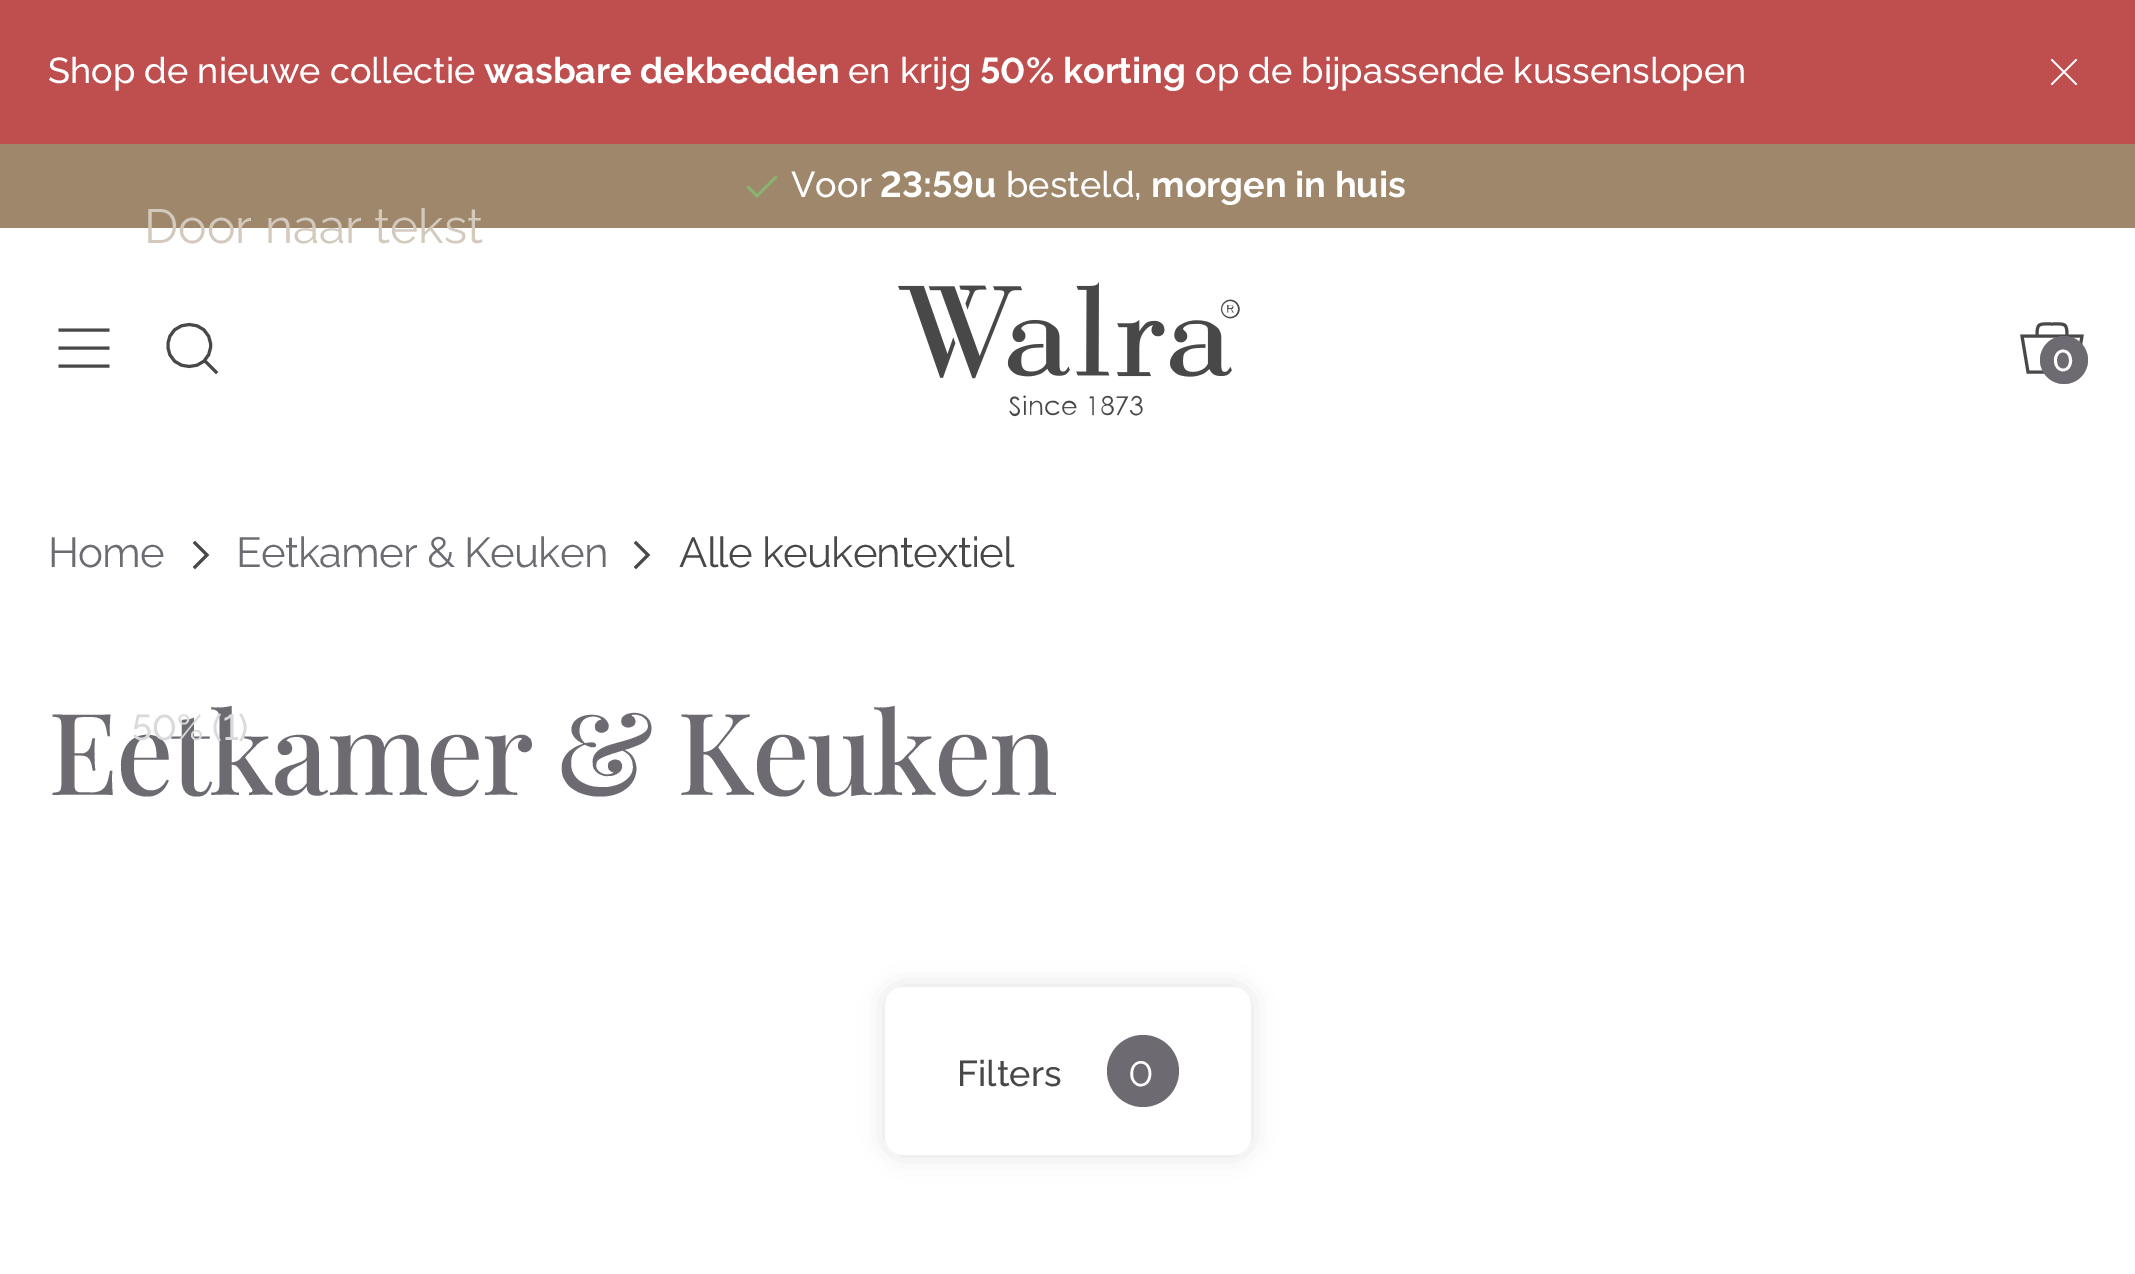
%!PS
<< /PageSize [2135 1274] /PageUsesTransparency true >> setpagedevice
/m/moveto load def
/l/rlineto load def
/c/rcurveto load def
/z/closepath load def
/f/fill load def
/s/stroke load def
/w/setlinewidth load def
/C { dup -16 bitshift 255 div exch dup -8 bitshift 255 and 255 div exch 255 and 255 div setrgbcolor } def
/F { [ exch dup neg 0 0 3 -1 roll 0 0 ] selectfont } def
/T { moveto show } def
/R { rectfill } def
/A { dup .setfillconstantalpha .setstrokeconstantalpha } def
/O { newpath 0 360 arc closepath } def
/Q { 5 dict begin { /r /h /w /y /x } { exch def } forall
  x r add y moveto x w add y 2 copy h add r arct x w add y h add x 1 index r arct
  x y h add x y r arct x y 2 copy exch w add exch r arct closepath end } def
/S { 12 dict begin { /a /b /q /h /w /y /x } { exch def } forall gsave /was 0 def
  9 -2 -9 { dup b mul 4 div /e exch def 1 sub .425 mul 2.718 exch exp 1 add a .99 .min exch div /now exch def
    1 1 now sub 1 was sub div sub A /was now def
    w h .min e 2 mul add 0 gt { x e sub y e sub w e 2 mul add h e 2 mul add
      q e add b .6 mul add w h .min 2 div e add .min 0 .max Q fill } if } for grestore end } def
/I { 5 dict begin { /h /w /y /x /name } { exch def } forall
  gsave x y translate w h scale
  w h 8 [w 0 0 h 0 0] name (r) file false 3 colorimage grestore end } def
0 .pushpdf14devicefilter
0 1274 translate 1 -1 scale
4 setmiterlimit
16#FFFFFF C
0 0 2135 1274 R
16#BF4E4E C
0 0 2135 144 R
/Raleway-Medium 36 F
16#FFFFFF C
(Shop de nieuwe collectie) 48 83 T
/Raleway-Bold 36 F
(wasbare dekbedden) 484 83 T
/Raleway-Medium 36 F
(en krijg) 848 83 T
/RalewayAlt-Bold 36 F
(50% korting) 980 83 T
/Raleway-Medium 36 F
(op de bijpassende kussenslopen) 1195 83 T
(1.rgb) 2050 58 28 28 I
16#9E876B C
0 144 2135 84 R
/Raleway-Regular 48 F
16#D3C9BD C
(Door naar tekst) 144 243 T
16#8AB56F C
2.5 w
2 setlinecap
748.5 187.5 m 8.5 8.5 l 18.5 -18.5 l s
/Raleway-Medium 36 F
16#FFFFFF C
(Voor) 791 197 T
/RalewayAlt-Bold 36 F
(23:59u) 880 197 T
/Raleway-Medium 36 F
(besteld,) 1006 197 T
/Raleway-Bold 36 F
(morgen in huis) 1151 197 T
16#484848 C
3 w
60 330 m 48 0 l 60 348 m 48 0 l 60 366 m 48 0 l s
205.5 361.5 m 10.5 10.5 l 168 345.5 m 0 28 42.5 28 42.5 0 c 0 -28 -42.5 -28 -42.5 0 c z s
(2.rgb) 898 282 342 135 I
0 setlinecap
2074.5 372 m -46.5 0 l -6 -36 l 60 0 l -6 36 l z 2037 336 m 0 -13.5 2 -12 15 -12 c 13 0 15 -1.5 15 12 c s
16#6E6A72 C
2064 360 24 O f
/Raleway-Medium 36 F
16#FFFFFF C
(0) 2052 371 T
/Raleway-Regular 42 F
16#6E6A72 C
48 567 m -.8 0 (Home) ashow
16#484848 C
2 setlinecap
195 567 m 12 -12 l -12 -12 l s
16#6E6A72 C
236 567 m -.8 0 (Eetkamer & Keuken) ashow
16#484848 C
636 567 m 12 -12 l -12 -12 l s
679 567 m -.8 0 (Alle keukentextiel) ashow
/PlayfairDisplay-Medium 114 F
16#6E6A72 C
48 795 m -2.25 0 (Eetkamer & Keuken) ashow
/RalewayAlt-Medium 36 F
16#DAD9DB C
(50% \(1\)) 132 740 T
16#000000 C
885 987 366 168 18 12 .12 S
16#FFFFFF C
885 987 366 168 18 Q f
/Raleway-Medium 36 F
16#484848 C
(Filters) 957 1086 T
16#6E6A72 C
1143 1071 36 O f
/Raleway-Regular 42 F
16#FFFFFF C
(0) 1128 1086 T
.poppdf14devicefilter showpage
